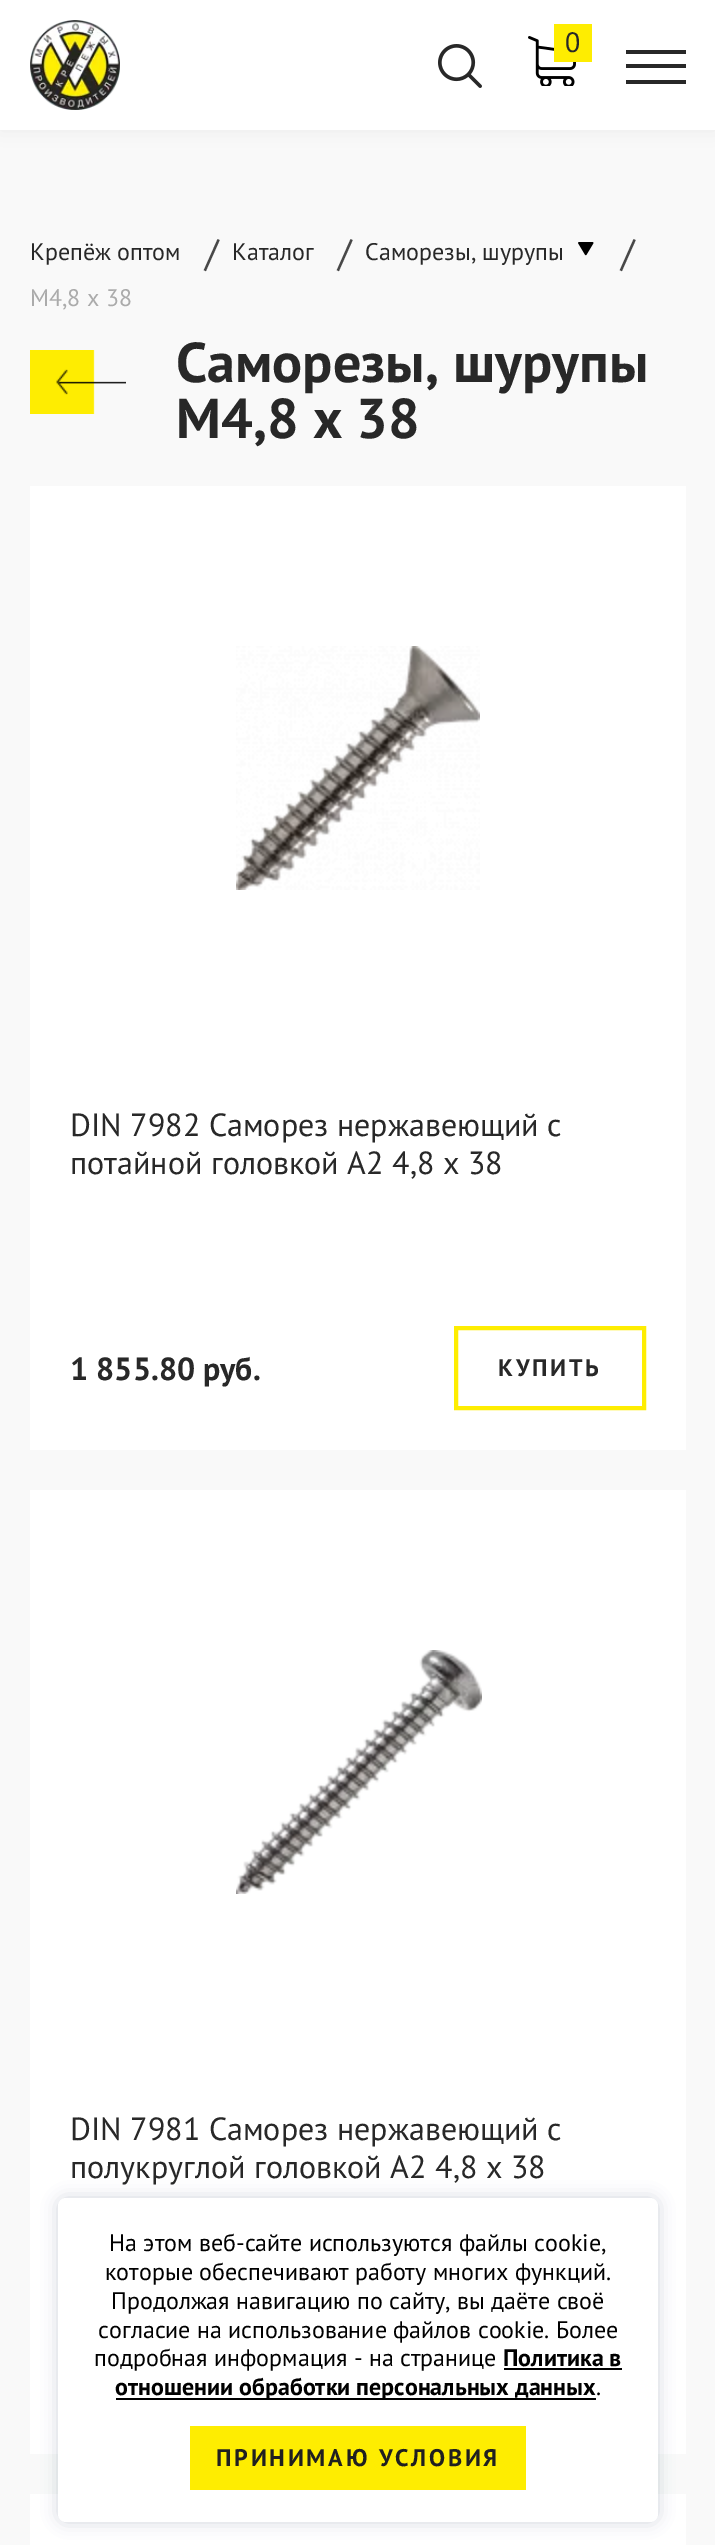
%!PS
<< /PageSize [715 2545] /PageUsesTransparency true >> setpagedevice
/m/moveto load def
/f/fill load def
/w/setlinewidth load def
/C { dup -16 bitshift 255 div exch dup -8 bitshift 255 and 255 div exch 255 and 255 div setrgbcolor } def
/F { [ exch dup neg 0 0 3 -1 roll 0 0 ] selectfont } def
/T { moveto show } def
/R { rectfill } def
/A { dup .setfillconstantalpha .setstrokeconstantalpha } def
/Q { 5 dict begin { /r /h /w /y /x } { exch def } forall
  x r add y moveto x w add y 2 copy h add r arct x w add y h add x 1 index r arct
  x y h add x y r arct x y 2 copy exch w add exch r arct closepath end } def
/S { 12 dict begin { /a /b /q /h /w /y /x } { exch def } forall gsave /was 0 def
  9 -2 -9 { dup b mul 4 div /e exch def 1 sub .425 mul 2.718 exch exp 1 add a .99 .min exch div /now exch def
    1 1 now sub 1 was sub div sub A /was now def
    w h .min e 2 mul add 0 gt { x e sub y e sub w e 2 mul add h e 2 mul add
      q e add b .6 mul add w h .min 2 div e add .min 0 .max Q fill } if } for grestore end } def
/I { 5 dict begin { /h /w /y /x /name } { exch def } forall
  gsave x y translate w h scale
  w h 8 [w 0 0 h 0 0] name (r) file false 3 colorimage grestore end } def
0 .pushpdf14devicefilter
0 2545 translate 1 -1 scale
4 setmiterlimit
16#F9F9F9 C
0 0 715 2545 R
16#030505 C
0 0 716 130 0 10 .05 S
16#FFFFFF C
0 0 715 130 R
(1.rgb) 30 20 90 90 I
(2.rgb) 438 44 44 44 I
(3.rgb) 528 36 48 50 I
16#FEED01 C
554 24 38 38 R
/PTSans-Regular 28 F
16#282828 C
(0) 565 52 T
626 64 60 4 R
626 50 60 4 R
626 80 60 4 R
/PTSans-Regular 24 F
(Крепёж оптом) 30 260 T
/PTSans-Regular 38 F
16#484848 C
(/) 205 266 T
/PTSans-Regular 24 F
16#282828 C
(Каталог) 232 260 T
/PTSans-Regular 38 F
16#484848 C
(/) 338 266 T
/PTSans-Regular 24 F
16#282828 C
(Саморезы, шурупы) 365 260 T
(4.rgb) 578 242 16 14 I
/PTSans-Regular 38 F
16#484848 C
(/) 621 266 T
/PTSans-Regular 24 F
16#ABABAB C
(М4,8 х 38) 30 306 T
(5.rgb) 30 350 96 64 I
/PTSans-Bold 56 F
16#282828 C
(Саморезы, шурупы) 176 382 T
(М4,8 х 38) 176 438 T
16#FFFFFF C
30 486 656 964 R
(6.rgb) 236 646 244 244 I
/PTSans-Regular 32 F
16#282828 C
(DIN 7982 Саморез нержавеющий с) 70 1136 T
(потайной головкой А2 4,8 x 38) 70 1174 T
/PTSans-Bold 32 F
(1 855.80 руб.) 70 1380 T
16#FEED01 C
4 w
456 1328 188 80 rectstroke
/PTSans-Bold 24 F
16#282828 C
498 1376 m 2.75 0 (КУПИТЬ) ashow
16#FFFFFF C
30 1490 656 964 R
(7.rgb) 236 1650 246 244 I
/PTSans-Regular 32 F
16#282828 C
(DIN 7981 Саморез нержавеющий с) 70 2140 T
(полукруглой головкой А2 4,8 x 38) 70 2178 T
16#FFFFFF C
30 2494 656 51 R
16#223C50 C
58 2198 600 324 8 8 .2 S
16#FFFFFF C
58 2198 600 324 8 Q f
/PTSans-Regular 24 F
16#000000 C
(На этом веб-сайте используются файлы cookie,) 109 2251 T
(которые обеспечивают работу многих функций.) 105 2280 T
(Продолжая навигацию по сайту, вы даёте своё) 111 2309 T
(согласие на использование файлов cookie. Более) 98 2338 T
(подробная информация - на странице) 94 2366 T
/PTSans-Bold 24 F
(Политика в) 503 2366 T
504 2368 118 2 R
116 2398 480 2 R
(отношении обработки персональных данных) 115 2395 T
/PTSans-Regular 24 F
(.) 596 2395 T
16#FEED01 C
190 2426 336 64 R
/PTSans-Bold 24 F
16#202020 C
216 2466 m 2.75 0 (ПРИНИМАЮ УСЛОВИЯ) ashow
.poppdf14devicefilter showpage
